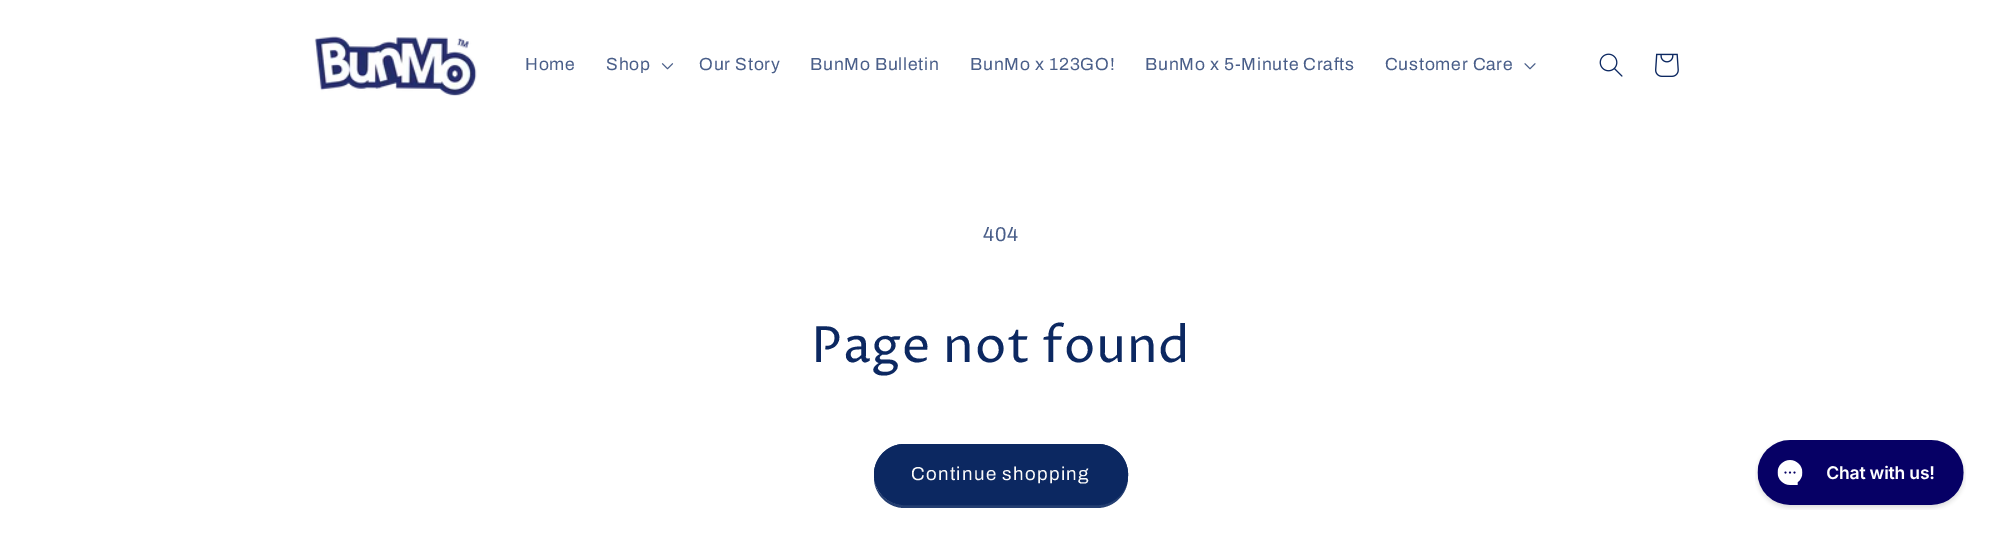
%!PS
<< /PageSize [2001 538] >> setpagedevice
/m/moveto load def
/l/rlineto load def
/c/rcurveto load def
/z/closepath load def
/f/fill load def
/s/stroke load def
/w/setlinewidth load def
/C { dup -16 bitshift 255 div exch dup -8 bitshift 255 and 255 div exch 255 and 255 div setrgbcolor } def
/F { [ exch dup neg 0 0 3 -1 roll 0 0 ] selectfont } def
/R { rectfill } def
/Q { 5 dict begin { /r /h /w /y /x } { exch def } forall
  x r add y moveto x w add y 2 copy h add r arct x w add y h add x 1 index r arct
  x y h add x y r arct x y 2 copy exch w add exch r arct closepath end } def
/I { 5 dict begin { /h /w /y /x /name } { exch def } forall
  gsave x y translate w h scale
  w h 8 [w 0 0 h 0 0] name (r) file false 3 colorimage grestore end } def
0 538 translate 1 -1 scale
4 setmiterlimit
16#FFFFFF C
0 0 2001 538 R
(1.rgb) 314 36 163 60 I
/Archivo-Regular 17.5 F
16#495E89 C
525 70 m .75 0 (Home) ashow
606 70 m .75 0 (Shop) ashow
(2.rgb) 661 63 13 7 I
699 70 m .75 0 (Our Story) ashow
810 70 m .75 0 (BunMo Bulletin) ashow
970 70 m .75 0 (BunMo x 123GO!) ashow
1145 70 m .75 0 (BunMo x 5-Minute Crafts) ashow
1385 70 m .75 0 (Customer Care) ashow
(3.rgb) 1524 63 12 7 I
(4.rgb) 1599 53 24 24 I
(5.rgb) 1655 53 24 24 I
/Archivo-Regular 20 F
983 241 m .75 0 (404) ashow
/ProzaLibre-Regular 50 F
16#0C2861 C
811 362 m .75 0 (Page not found) ashow
16#243E71 C
874 479 m 1 16 14 29 31 29 c 192 0 l 17 0 31 -14 31 -31 c -1 -7 l 1 4 l 0 17 -14 31 -31 31 c -193 0 l -15 0 -28 -11 -30 -26 c z f
16#0C2861 C
874 444 254 61 30.5 Q f
3 w
875.5 445.5 251 58 29 Q s
/Archivo-Regular 18.75 F
16#FAFAFA C
911 480 m 1.25 0 (Continue shopping) ashow
(6.rgb) 1755 440 211 70 I
showpage
